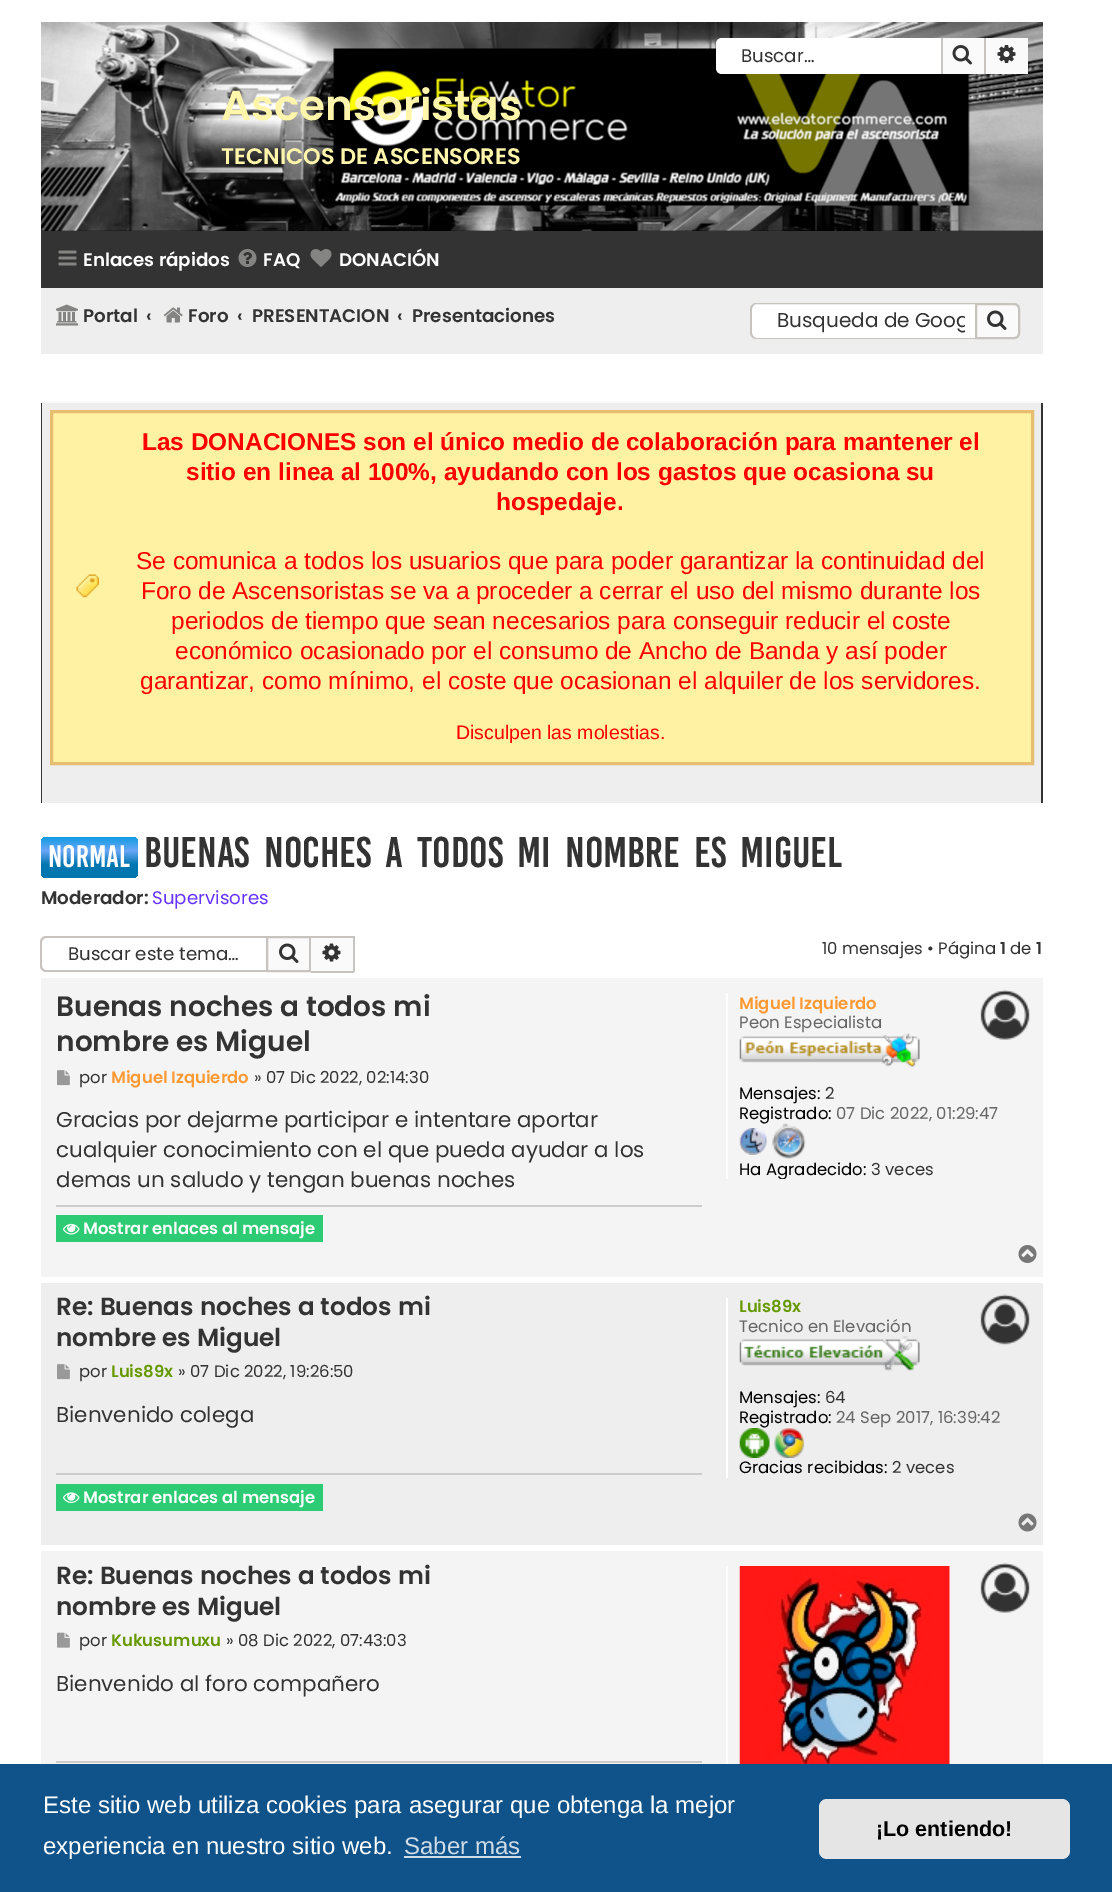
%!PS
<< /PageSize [1112 1892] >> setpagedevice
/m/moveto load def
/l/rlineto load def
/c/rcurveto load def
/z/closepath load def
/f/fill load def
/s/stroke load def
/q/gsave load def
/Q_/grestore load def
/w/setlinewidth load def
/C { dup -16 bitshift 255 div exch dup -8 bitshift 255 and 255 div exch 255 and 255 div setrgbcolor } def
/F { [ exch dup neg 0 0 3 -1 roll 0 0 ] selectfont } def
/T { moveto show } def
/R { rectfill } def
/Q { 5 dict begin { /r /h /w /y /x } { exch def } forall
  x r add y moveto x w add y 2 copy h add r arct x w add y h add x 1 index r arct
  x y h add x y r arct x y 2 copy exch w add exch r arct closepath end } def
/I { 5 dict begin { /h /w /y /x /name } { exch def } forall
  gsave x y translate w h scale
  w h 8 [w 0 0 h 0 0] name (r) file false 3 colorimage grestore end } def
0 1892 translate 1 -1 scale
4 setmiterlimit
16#FFFFFF C
0 0 1112 1892 R
(1.rgb) 41 22 1002 209 I
722 38 m 219 0 l 0 36 l -219 0 l -3.5 0 -6 -2.5 -6 -6 c 0 -24 l 0 -3.5 2.5 -6 6 -6 c z f
/Poppins-Regular 18.25 F
16#333333 C
(Buscar…) 741 62 T
16#FAFAFA C
943 38 41 36 R
16#C7C3BF C
984 38 2 36 R
941 38 2 36 R
(2.rgb) 952 45 20 20 I
16#FAFAFA C
986 38 42 36 R
(3.rgb) 997 45 19 18 I
/Poppins-SemiBold 42 F
16#FFF6AB C
(Ascensoristas) 221 120 T
/Poppins-SemiBold 22.5 F
(TECNICOS DE ASCENSORES) 221 164 T
16#333333 C
41 231 1002 57 R
(4.rgb) 58 250 19 16 I
/Poppins-SemiBold 18.25 F
16#FFFFFF C
(Enlaces rápidos) 83 266 T
(5.rgb) 238 249 19 18 I
(FAQ) 263 266 T
(6.rgb) 310 249 22 18 I
(DONACIÓN) 339 266 T
16#EEEEEE C
41 288 1002 66 R
(7.rgb) 56 304 22 22 I
16#333333 C
(Portal) 83 322 T
(‹) 146 322 T
(8.rgb) 163 307 20 16 I
(Foro) 188 322 T
(‹) 237 322 T
(PRESENTACION) 252 322 T
(‹) 397 322 T
(Presentaciones) 412 322 T
16#FFFFFF C
757 305 m 218 0 l 0 33 l -218 0 l -3 0 -5 -2 -5 -5 c 0 -23 l 0 -3 2 -5 5 -5 c z f
16#C7C3BF C
756 303 m 219 0 l 0 36 l -219 0 l -3 0 -6 -3 -6 -6 c 0 -24 l 0 -3 3 -6 6 -6 c z 756 304 m 219 0 l 0 34 l -219 0 l -2 0 -4 -3 -4 -5 c 0 -24 l 0 -2 2 -5 4 -5 c z eofill
q
777 306 188 30 rectclip
/Poppins-Regular 20 F
16#333333 C
(Busqueda de Goog) 777 327 T
Q_
16#FAFAFA C
976 304 m 38 0 l 3 0 5 2 5 5 c 0 24 l 0 3 -2 5 -5 5 c -38 0 l z q f Q_
16#C7C3BF C
2 w
s
(9.rgb) 987 310 20 20 I
16#333333 C
41 403 1002 400 R
16#EEEEEE C
42 403 999 400 R
16#FAFAFA C
41 401 1002 2 R
16#FFF3A3 C
53 413 978 349 R
(10.rgb) 76 574 23 24 I
16#E7BD72 C
3 w
51.5 411.5 981 352 rectstroke
/LiberationSans-Bold 24.4 F
16#FF0000 C
(Las DONACIONES son el único medio de colaboración para mantener el) 142 450 T
(sitio en linea al 100%, ayudando con los gastos que ocasiona su) 186 480 T
(hospedaje.) 496 510 T
/LiberationSans-Regular 24.4 F
(Se comunica a todos los usuarios que para poder garantizar la continuidad del) 136 569 T
(Foro de Ascensoristas se va a proceder a cerrar el uso del mismo durante los) 141 599 T
(periodos de tiempo que sean necesarios para conseguir reducir el coste) 171 629 T
(económico ocasionado por el consumo de Ancho de Banda y así poder) 175 659 T
(garantizar, como mínimo, el coste que ocasionan el alquiler de los servidores.) 140 689 T
/LiberationSans-Regular 19.5 F
(Disculpen las molestias.) 456 739 T
q 41 837 97 41 6 Q clip newpath
<< /ShadingType 2 /ColorSpace /DeviceRGB /Coords [89 837 89 878] /Extend [true true] /Function << /FunctionType 3 /Domain [0 1] /Functions [<< /FunctionType 2 /Domain [0 1] /C0 [.059 .608 .882] /C1 [.416 .655 .969] /N 1 >> << /FunctionType 2 /Domain [0 1] /C0 [.416 .655 .969] /C1 [0 .463 .694] /N 1 >> << /FunctionType 2 /Domain [0 1] /C0 [0 .463 .694] /C1 [0 .463 .694] /N 1 >>] /Bounds [.33 .67] /Encode [0 1 0 1 0 1] >> >> shfill Q_
/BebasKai-Regular 24 F
16#FFFFFF C
(Normal) 48 867 T
/BebasKai-Regular 33 F
16#333333 C
144 867 m 6 0 32 (Buenas noches a todos mi nombre es Miguel) widthshow
/Poppins-SemiBold 18.25 F
(Moderador:) 41 904 T
/Poppins-Regular 18.25 F
16#6633FF C
(Supervisores) 152 904 T
16#C7C3BF C
46 936 m 220 0 l 0 36 l -220 0 l -3 0 -6 -3 -6 -6 c 0 -24 l 0 -3 3 -6 6 -6 c z 46 938 m 220 0 l 0 32 l -220 0 l -2 0 -4 -2 -4 -4 c 0 -24 l 0 -2 2 -4 4 -4 c z eofill
16#333333 C
(Buscar este tema…) 68 960 T
16#FAFAFA C
267 937 m 43 0 l 0 34 l -43 0 l z q f Q_
16#C7C3BF C
2 w
s
(9.rgb) 279 943 20 20 I
16#FAFAFA C
311 938 42 33 R
16#C7C3BF C
311 936 43 2 R
353 936 2 36 R
311 971 43 2 R
(11.rgb) 322 943 19 19 I
/Poppins-Regular 16.5 F
16#333333 C
(10 mensajes • Página) 822 954 T
/Poppins-SemiBold 16.5 F
(1) 1000 954 T
/Poppins-Regular 16.5 F
(de) 1010 954 T
/Poppins-SemiBold 16.5 F
(1) 1036 954 T
16#F4F4F4 C
41 978 1002 299 R
(12.rgb) 980 989 50 51 I
/Poppins-SemiBold 28 F
16#333333 C
(Buenas noches a todos mi) 56 1016 T
(nombre es Miguel) 56 1051 T
(13.rgb) 57 1070 13 16 I
/Poppins-Regular 16.5 F
(por) 79 1083 T
/Poppins-SemiBold 16.5 F
16#FF9933 C
(Miguel Izquierdo) 111 1083 T
/Poppins-Regular 16.5 F
16#333333 C
(» 07 Dic 2022, 02:14:30) 254 1083 T
/Poppins-Regular 21.45 F
(Gracias por dejarme participar e intentare aportar) 56 1127 T
(cualquier conocimiento con el que pueda ayudar a los) 56 1157 T
(demas un saludo y tengan buenas noches) 56 1187 T
16#CCCCCC C
56 1205 646 2 R
16#2DCB73 C
56 1215 267 27 R
(14.rgb) 63 1223 17 12 I
/Poppins-SemiBold 16.5 F
16#FFFFFF C
(Mostrar enlaces al mensaje) 83 1234 T
726 993 2 186 R
16#FF9933 C
(Miguel Izquierdo) 739 1009 T
/Poppins-Regular 16.5 F
16#666666 C
(Peon Especialista) 739 1028 T
(15.rgb) 739 1033 181 34 I
16#000000 C
(Mensajes:) 739 1099 T
16#333333 C
(2) 825 1099 T
16#000000 C
(Registrado:) 739 1119 T
16#666666 C
(07 Dic 2022, 01:29:47) 836 1119 T
(16.rgb) 739 1128 28 27 I
(17.rgb) 772 1123 34 36 I
q
740 1160 288 19 rectclip
16#000000 C
(Ha Agradecido:) 739 1175 T
Q_
16#333333 C
(3 veces) 871 1175 T
(18.rgb) 1018 1245 19 18 I
16#EEEEEE C
41 1283 1002 262 R
(19.rgb) 980 1294 50 51 I
/Poppins-SemiBold 24.75 F
16#333333 C
(Re: Buenas noches a todos mi) 56 1315 T
(nombre es Miguel) 56 1346 T
(20.rgb) 57 1364 13 16 I
/Poppins-Regular 16.5 F
(por) 79 1377 T
/Poppins-SemiBold 16.5 F
16#669900 C
(Luis89x) 111 1377 T
/Poppins-Regular 16.5 F
16#333333 C
(» 07 Dic 2022, 19:26:50) 178 1377 T
/Poppins-Regular 21.45 F
(Bienvenido colega) 56 1422 T
16#CCCCCC C
56 1473 646 2 R
16#2DCB73 C
56 1484 267 27 R
(21.rgb) 63 1492 17 11 I
/Poppins-SemiBold 16.5 F
16#FFFFFF C
(Mostrar enlaces al mensaje) 83 1503 T
726 1298 2 180 R
16#669900 C
(Luis89x) 739 1312 T
/Poppins-Regular 16.5 F
16#666666 C
(Tecnico en Elevación) 739 1332 T
(22.rgb) 739 1336 181 36 I
16#000000 C
(Mensajes:) 739 1403 T
16#333333 C
(64) 825 1403 T
16#000000 C
(Registrado:) 739 1423 T
16#666666 C
(24 Sep 2017, 16:39:42) 836 1423 T
(23.rgb) 739 1428 31 30 I
(24.rgb) 774 1428 30 30 I
16#000000 C
(Gracias recibidas:) 739 1473 T
16#333333 C
(2 veces) 892 1473 T
(25.rgb) 1018 1513 19 19 I
16#F4F4F4 C
41 1551 1002 213 R
(12.rgb) 980 1562 50 51 I
/Poppins-SemiBold 24.75 F
16#333333 C
(Re: Buenas noches a todos mi) 56 1584 T
(nombre es Miguel) 56 1615 T
(26.rgb) 57 1632 13 16 I
/Poppins-Regular 16.5 F
(por) 79 1646 T
/Poppins-SemiBold 16.5 F
16#669900 C
(Kukusumuxu) 111 1646 T
/Poppins-Regular 16.5 F
16#333333 C
(» 08 Dic 2022, 07:43:03) 226 1646 T
/Poppins-Regular 21.45 F
(Bienvenido al foro compañero) 56 1691 T
16#CCCCCC C
56 1761 646 2 R
16#FFFFFF C
726 1566 2 198 R
(27.rgb) 739 1566 211 198 I
16#0F538A C
0 1764 1112 128 R
/LiberationSans-Regular 24 F
16#FFFFFF C
(Este sitio web utiliza cookies para asegurar que obtenga la mejor) 43 1813 T
(experiencia en nuestro sitio web.) 43 1854 T
16#CFDDE8 C
(Saber más) 404 1854 T
404 1856 117 2 R
16#E5E5E5 C
819 1799 251 60 8 Q f
/LiberationSans-Bold 21.5 F
16#000000 C
(¡Lo entiendo!) 876 1836 T
showpage
